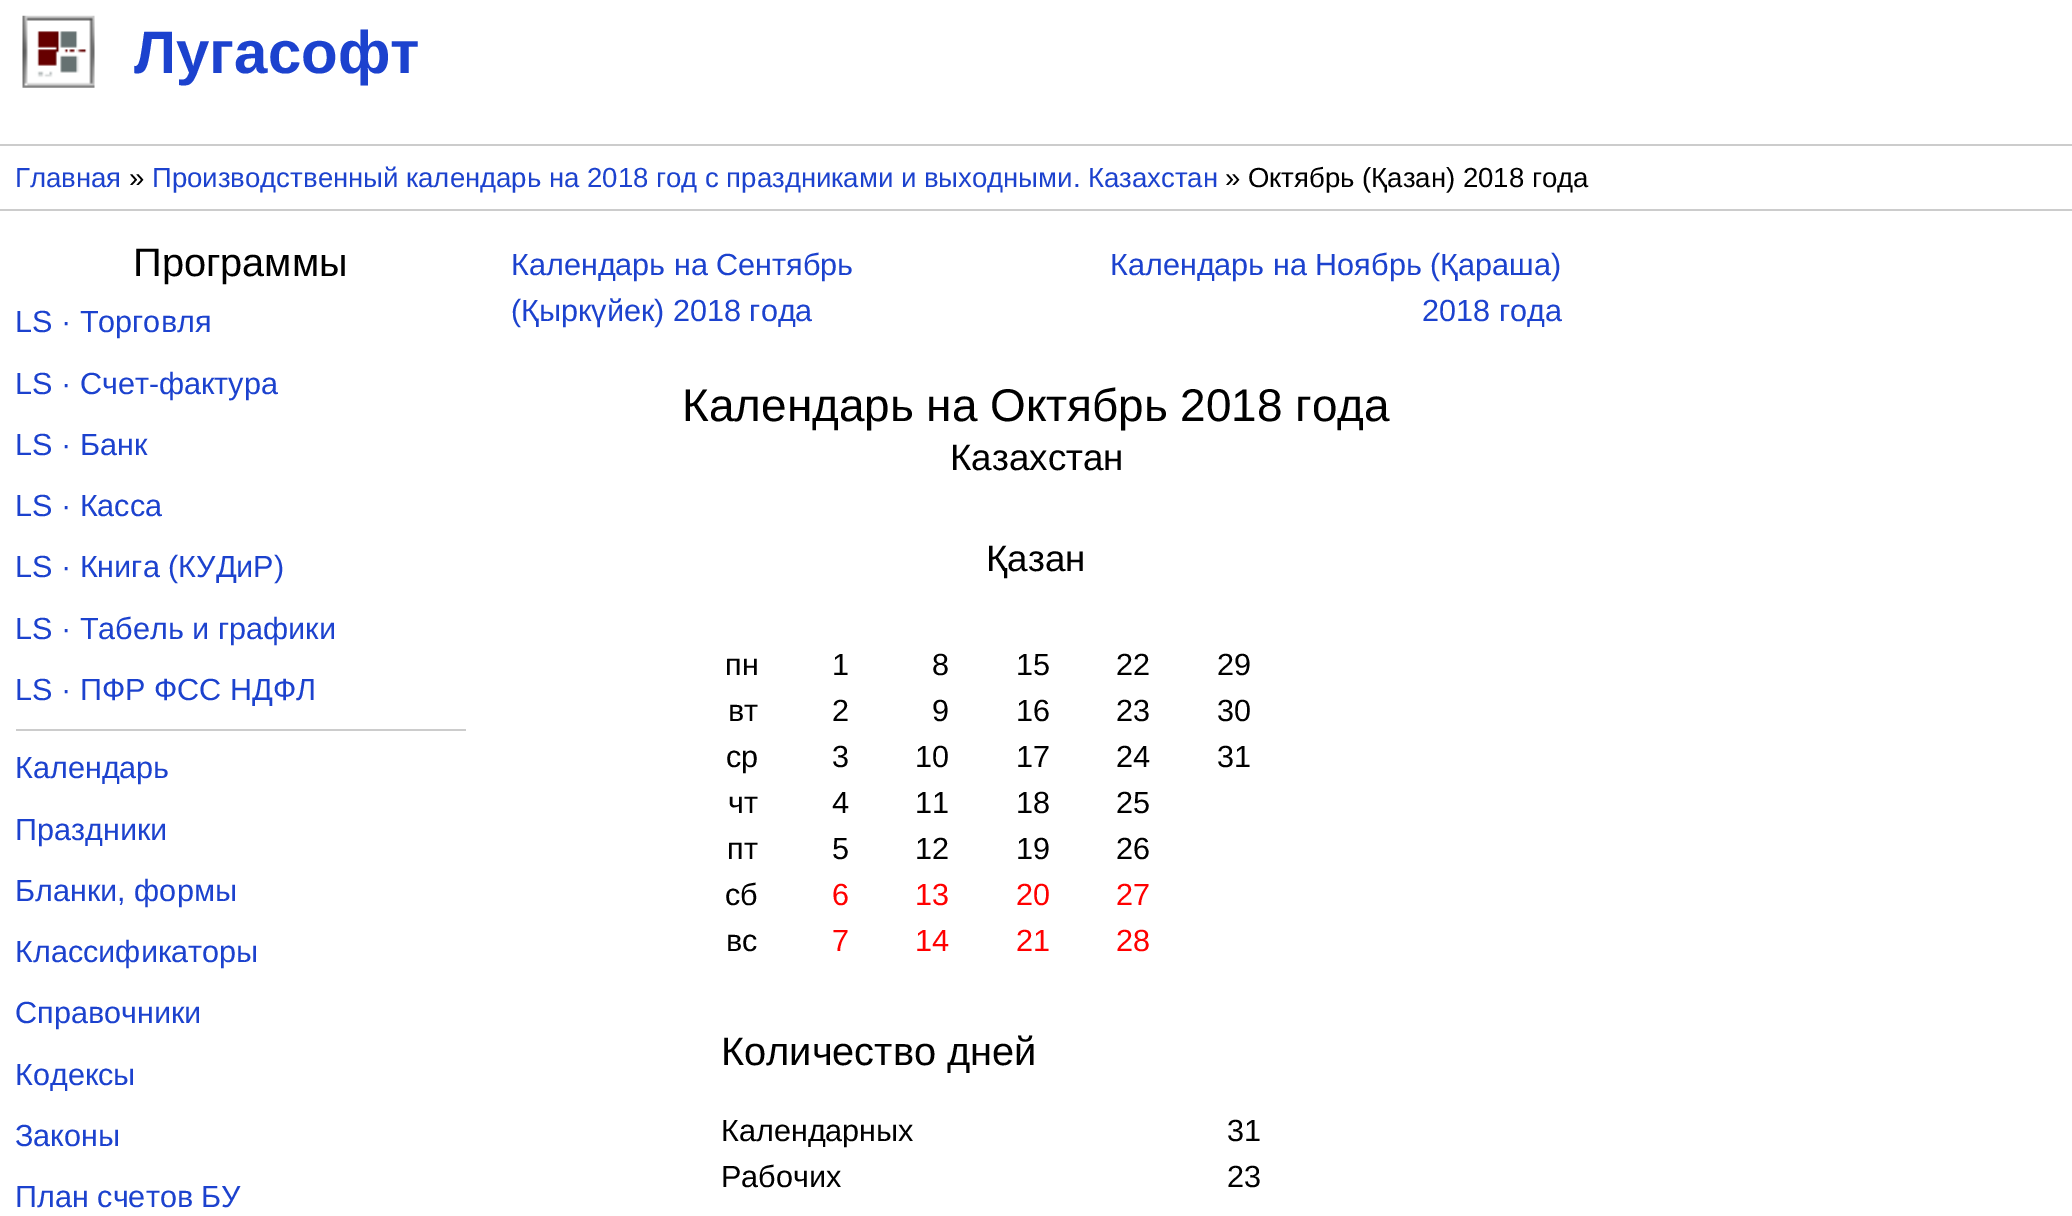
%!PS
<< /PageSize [2072 1216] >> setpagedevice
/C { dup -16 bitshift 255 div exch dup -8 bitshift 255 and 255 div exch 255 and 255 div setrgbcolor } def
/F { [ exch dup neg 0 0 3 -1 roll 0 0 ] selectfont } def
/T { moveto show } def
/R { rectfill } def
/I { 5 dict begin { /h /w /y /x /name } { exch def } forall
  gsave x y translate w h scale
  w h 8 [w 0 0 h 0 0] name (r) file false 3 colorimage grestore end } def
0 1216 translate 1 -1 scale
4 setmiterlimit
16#FFFFFF C
0 0 2072 1216 R
(1.rgb) 22 15 73 73 I
/LiberationSans-Bold 60 F
16#1C42CE C
(Лугасофт) 134 73 T
16#CCCCCC C
0 144 2072 2 R
0 209 2072 2 R
/LiberationSans-Regular 27.55 F
16#1C42CE C
(Главная) 15 187 T
16#000000 C
(») 129 187 T
16#1C42CE C
(Производственный календарь на 2018 год с праздниками и выходными. Казахстан) 152 187 T
16#000000 C
(» Октябрь \(Қазан\) 2018 года) 1225 187 T
/LiberationSans-Regular 39.75 F
(Программы) 133 276 T
16#CCCCCC C
16 729 450 2 R
/LiberationSans-Regular 30.6 F
16#1C42CE C
(LS · Торговля) 15 332 T
(LS · Счет-фактура) 15 394 T
(LS · Банк) 15 455 T
(LS · Касса) 15 516 T
(LS · Книга \(КУДиР\)) 15 577 T
(LS · Табель и графики) 15 639 T
(LS · ПФР ФСС НДФЛ) 15 700 T
(Календарь) 15 778 T
(Праздники) 15 840 T
(Бланки, формы) 15 901 T
(Классификаторы) 15 962 T
(Справочники) 15 1023 T
(Кодексы) 15 1085 T
(Законы) 15 1146 T
(План счетов БУ) 15 1207 T
(Календарь на Сентябрь) 511 275 T
(\(Қыркүйек\) 2018 года) 511 321 T
(Календарь на Ноябрь \(Қараша\)) 1110 275 T
(2018 года) 1422 321 T
/LiberationSans-Regular 45.9 F
16#000000 C
(Календарь на Октябрь 2018 года) 682 421 T
/LiberationSans-Regular 36.75 F
(Казахстан) 950 470 T
(Қазан) 986 571 T
/LiberationSans-Regular 30.6 F
(пн) 725 675 T
(1) 832 675 T
(8) 932 675 T
(15) 1016 675 T
(22) 1116 675 T
(29) 1217 675 T
(вт) 728 721 T
(2) 832 721 T
(9) 932 721 T
(16) 1016 721 T
(23) 1116 721 T
(30) 1217 721 T
(ср) 726 767 T
(3) 832 767 T
(10) 915 767 T
(17) 1016 767 T
(24) 1116 767 T
(31) 1217 767 T
(чт) 728 813 T
(4) 832 813 T
(11) 915 813 T
(18) 1016 813 T
(25) 1116 813 T
(пт) 727 859 T
(5) 832 859 T
(12) 915 859 T
(19) 1016 859 T
(26) 1116 859 T
(сб) 725 905 T
16#FF0000 C
(6) 832 905 T
(13) 915 905 T
(20) 1016 905 T
(27) 1116 905 T
16#000000 C
(вс) 726 951 T
16#FF0000 C
(7) 832 951 T
(14) 915 951 T
(21) 1016 951 T
(28) 1116 951 T
/LiberationSans-Regular 39.75 F
16#000000 C
(Количество дней) 721 1065 T
/LiberationSans-Regular 30.6 F
(Календарных) 721 1141 T
(31) 1227 1141 T
(Рабочих) 721 1187 T
(23) 1227 1187 T
showpage
